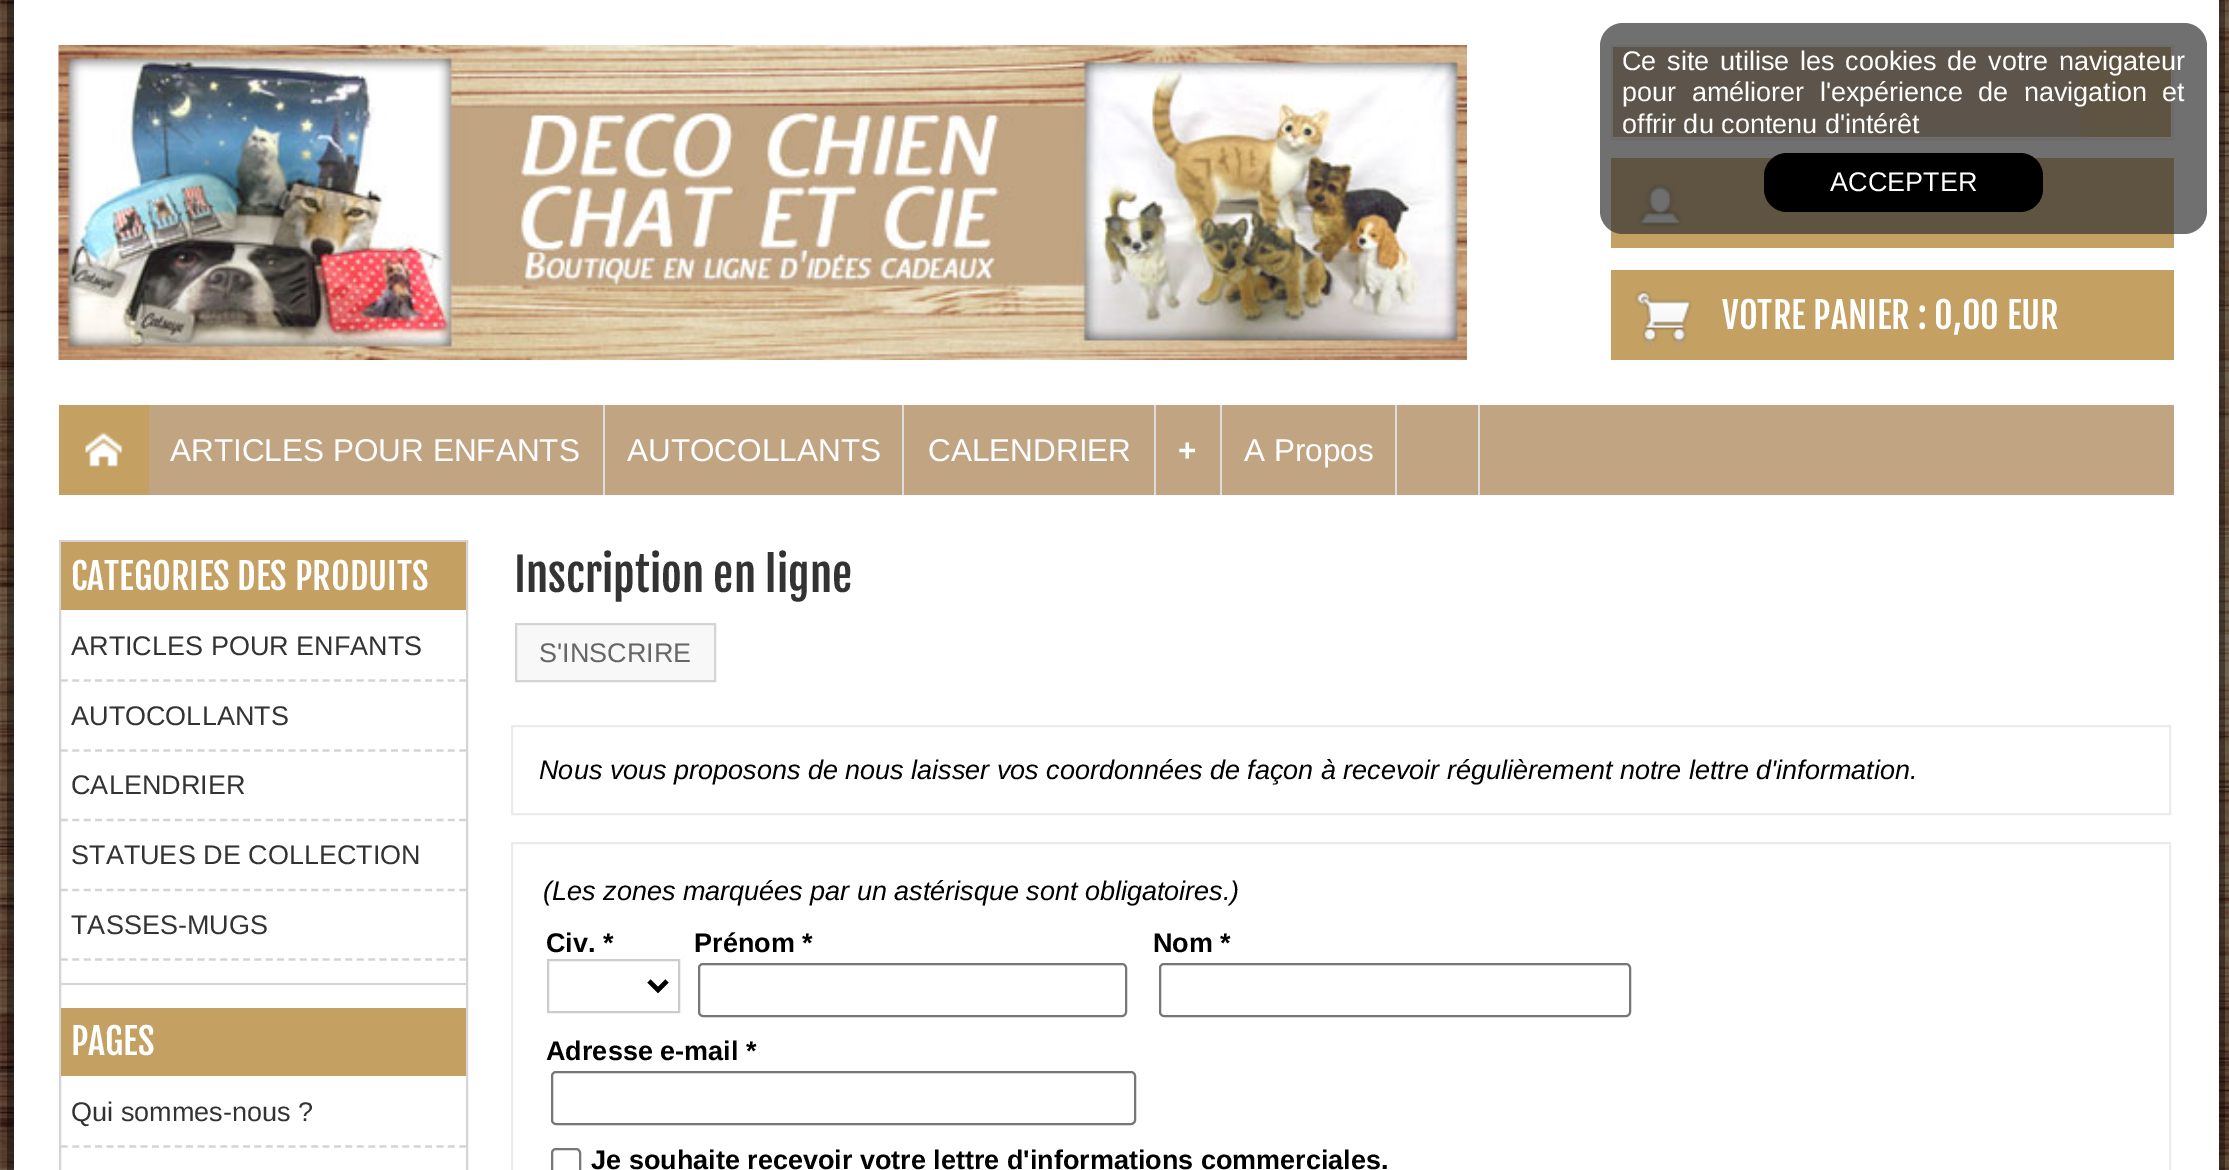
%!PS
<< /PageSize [2229 1170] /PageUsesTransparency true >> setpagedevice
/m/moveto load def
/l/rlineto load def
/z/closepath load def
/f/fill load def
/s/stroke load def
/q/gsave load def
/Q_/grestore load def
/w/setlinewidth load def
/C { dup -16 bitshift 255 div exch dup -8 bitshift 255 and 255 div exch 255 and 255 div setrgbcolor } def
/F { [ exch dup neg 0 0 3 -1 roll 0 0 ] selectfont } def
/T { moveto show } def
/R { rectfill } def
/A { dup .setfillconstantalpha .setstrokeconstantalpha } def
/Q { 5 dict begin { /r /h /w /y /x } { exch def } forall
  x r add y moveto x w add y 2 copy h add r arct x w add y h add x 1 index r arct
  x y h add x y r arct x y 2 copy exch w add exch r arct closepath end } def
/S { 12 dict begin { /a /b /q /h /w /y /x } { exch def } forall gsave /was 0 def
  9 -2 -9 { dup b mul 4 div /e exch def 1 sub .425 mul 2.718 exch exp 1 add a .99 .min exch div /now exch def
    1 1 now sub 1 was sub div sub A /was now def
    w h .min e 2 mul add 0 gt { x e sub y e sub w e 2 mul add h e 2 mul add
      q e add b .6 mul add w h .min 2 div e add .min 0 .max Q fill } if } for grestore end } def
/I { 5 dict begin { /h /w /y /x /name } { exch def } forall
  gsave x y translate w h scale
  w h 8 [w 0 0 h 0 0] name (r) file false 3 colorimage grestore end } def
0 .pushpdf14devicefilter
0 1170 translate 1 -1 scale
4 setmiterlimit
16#FFFFFF C
0 0 2229 1170 R
(1.rgb) 0 0 2229 1170 I
16#000000 C
0 -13 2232 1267 0 28 1 S
16#FFFFFF C
14 0 2205 1170 R
16#EEEEEE C
2 w
1612 46 561 93 rectstroke
16#C1A482 C
1613 47 468 90 R
16#C4A163 C
2081 47 90 90 R
1611 158 563 90 R
(3.rgb) 1637 183 46 44 I
0.7 A
16#333333 C
1600 23 607 211 23 Q f
/LiberationSans-Regular 27 F
1 A
16#FFFFFF C
1622 70 m 3.25 0 32 (Ce site utilise les cookies de votre navigateur) widthshow
1622 101 m 8 0 32 (pour améliorer l'expérience de navigation et) widthshow
(offrir du contenu d'intérêt) 1622 133 T
16#000000 C
1764 153 279 59 23 Q f
16#FFFFFF C
(ACCEPTER) 1830 191 T
(2.rgb) 58 45 1409 315 I
16#C4A163 C
1611 270 563 90 R
(4.rgb) 1635 291 57 56 I
/FjallaOne-Regular 36 F
16#FFFFFF C
(VOTRE PANIER : 0,00 EUR) 1722 329 T
16#C4A163 C
59 405 90 90 R
(5.rgb) 85 431 38 36 I
16#C1A482 C
149 405 2025 90 R
16#DDDDDD C
603 405 2 90 R
/LiberationSans-Regular 31.5 F
16#FFFFFF C
(ARTICLES POUR ENFANTS) 170 461 T
16#DDDDDD C
902 405 2 90 R
16#FFFFFF C
(AUTOCOLLANTS) 627 461 T
16#DDDDDD C
1154 405 2 90 R
16#FFFFFF C
(CALENDRIER) 928 461 T
16#DDDDDD C
1220 405 2 90 R
/LiberationSans-Bold 31.5 F
16#FFFFFF C
(+) 1178 461 T
16#DDDDDD C
1395 405 2 90 R
/LiberationSans-Regular 31.5 F
16#FFFFFF C
(A Propos) 1244 461 T
16#DDDDDD C
1478 405 2 90 R
16#D4D4D4 C
60 541 407 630 rectstroke
16#C4A163 C
61 542 405 68 R
/FjallaOne-Regular 36 F
16#FFFFFF C
(CATEGORIES DES PRODUITS) 71 590 T
16#D4D4D4 C
2.2 w
[6.75 4.63] 0 setdash
61 680.5 m 405 0 l s
/LiberationSans-Regular 27 F
16#333333 C
(ARTICLES POUR ENFANTS) 71 655 T
16#D4D4D4 C
61 750.5 m 405 0 l s
16#333333 C
(AUTOCOLLANTS) 71 725 T
16#D4D4D4 C
61 820 m 405 0 l s
16#333333 C
(CALENDRIER) 71 794 T
16#D4D4D4 C
61 890 m 405 0 l s
16#333333 C
(STATUES DE COLLECTION) 71 864 T
16#D4D4D4 C
61 959.5 m 405 0 l s
16#333333 C
(TASSES-MUGS) 71 934 T
16#D4D4D4 C
61 983 405 2 R
16#C4A163 C
61 1008 405 68 R
/FjallaOne-Regular 36 F
16#FFFFFF C
(PAGES) 71 1055 T
16#D4D4D4 C
61 1146.5 m 405 0 l s
/LiberationSans-Regular 27 F
16#333333 C
(Qui sommes-nous ?) 71 1121 T
/FjallaOne-Regular 45 F
(Inscription en ligne) 514 592 T
16#F8F8F8 C
516 624 m 199 0 l 0 57 l -199 0 l z q f Q_
16#D4D4D4 C
2 w
[] 0 setdash
s
/LiberationSans-Regular 27 F
16#666666 C
(S'INSCRIRE) 539 662 T
16#EBEBEB C
512 726 1658 88 rectstroke
/LiberationSans-Italic 27 F
16#000000 C
(Nous vous proposons de nous laisser vos coordonnées de façon à recevoir régulièrement notre lettre d'information.) 539 779 T
16#EBEBEB C
512 843 1658 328 rectstroke
16#000000 C
(\(Les zones marquées par un astérisque sont obligatoires.\)) 543 900 T
/LiberationSans-Bold 27 F
(Civ. *) 546 952 T
16#CCCCCC C
548 960 131 52 rectstroke
16#000000 C
4.5 w
649 981 m 9 9 l 9 -9 l s
(Prénom *) 694 952 T
16#767676 C
2 w
699 964 427 52 4 Q s
16#000000 C
(Nom *) 1153 952 T
16#767676 C
1160 964 470 52 4 Q s
16#000000 C
(Adresse e-mail *) 546 1060 T
16#767676 C
552 1072 583 52 4 Q s
552 1149 28 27 4 Q s
16#000000 C
(Je souhaite recevoir votre lettre d'informations commerciales.) 591 1169 T
.poppdf14devicefilter showpage
